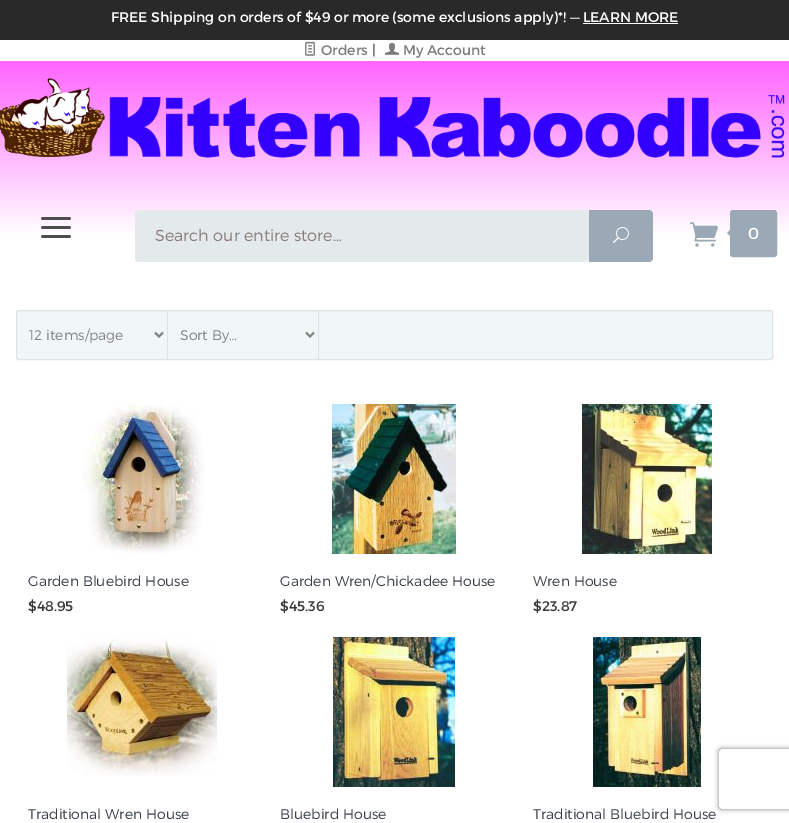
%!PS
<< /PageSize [789 823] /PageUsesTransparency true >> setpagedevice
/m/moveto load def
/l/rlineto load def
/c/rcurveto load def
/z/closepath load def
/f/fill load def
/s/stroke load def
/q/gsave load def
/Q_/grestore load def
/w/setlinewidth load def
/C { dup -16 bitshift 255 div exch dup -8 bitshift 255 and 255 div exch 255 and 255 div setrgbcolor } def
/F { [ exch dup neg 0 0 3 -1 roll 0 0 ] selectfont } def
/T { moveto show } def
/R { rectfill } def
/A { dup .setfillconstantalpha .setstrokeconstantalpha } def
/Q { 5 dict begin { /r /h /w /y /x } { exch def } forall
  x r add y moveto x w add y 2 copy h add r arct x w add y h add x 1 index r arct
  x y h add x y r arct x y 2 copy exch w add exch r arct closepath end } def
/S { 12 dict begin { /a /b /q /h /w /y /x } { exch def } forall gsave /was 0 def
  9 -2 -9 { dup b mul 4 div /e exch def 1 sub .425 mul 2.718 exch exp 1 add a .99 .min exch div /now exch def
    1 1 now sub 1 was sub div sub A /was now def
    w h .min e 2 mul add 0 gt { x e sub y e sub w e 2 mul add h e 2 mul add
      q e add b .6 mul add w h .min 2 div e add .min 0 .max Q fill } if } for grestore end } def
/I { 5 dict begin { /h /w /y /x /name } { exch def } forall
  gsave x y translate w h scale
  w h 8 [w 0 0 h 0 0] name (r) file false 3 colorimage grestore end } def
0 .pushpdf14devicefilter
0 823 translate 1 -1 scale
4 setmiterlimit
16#FFFFFF C
0 0 789 823 R
16#292929 C
0 0 789 40 R
/Montserrat-Regular 14 F
16#FFFFFF C
(FREE Shipping on orders of $49 or more \(some exclusions apply\)*! — LEARN MORE) 111 22 T
583 23 95 1 R
(1.rgb) 305 41 10 15 I
16#7D7D7D C
(Orders) 321 55 T
16#4D4D4D C
(|) 372 55 T
(2.rgb) 385 42 14 13 I
16#7D7D7D C
(My Account) 403 55 T
q 0 61 m 789 0 l 0 173 l -789 0 l z clip newpath
<< /ShadingType 2 /ColorSpace /DeviceRGB /Coords [395 61 395 278] /Extend [true true] /Function << /FunctionType 3 /Domain [0 1] /Functions [<< /FunctionType 2 /Domain [0 1] /C0 [1 .4 1] /C1 [1 .4 1] /N 1 >> << /FunctionType 2 /Domain [0 1] /C0 [1 .4 1] /C1 [1 1 1] /N 1 >> << /FunctionType 2 /Domain [0 1] /C0 [1 1 1] /C1 [1 1 1] /N 1 >>] /Bounds [.01 .81] /Encode [0 1 0 1 0 1] >> >> shfill Q_
(3.rgb) 0 78 785 80 I
(4.rgb) 41 217 30 21 I
16#E4EAEB C
135 210 454 52 4 Q f
/Montserrat-Light 16 F
16#8A7B7B C
(Search our entire store…) 155 241 T
16#9BA8B5 C
589 210 m 60 0 l 2 0 4 2 4 4 c 0 44 l 0 2 -2 4 -4 4 c -60 0 l z f
(5.rgb) 613 227 16 16 I
(6.rgb) 690 222 28 25 I
2 w
731 211 45 45 2 Q s
732 228 m 0 10 l -5 -5 l z f
732 212 43 43 R
/Montserrat-Regular 16 F
16#FFFFFF C
(0) 748 239 T
16#F1F6F7 C
16.5 310.5 756 49 2.5 Q q f Q_
16#DBE3E5 C
1 w
s
167 311 1 48 R
16#838383 C
2 w
155 332.5 m 4 4 l 4 -4 l s
/Montserrat-Light 14 F
(12 items/page) 29 340 T
16#DBE3E5 C
318 311 1 48 R
16#838383 C
306 332.5 m 4 4 l 4 -4 l s
(Sort By…) 180 340 T
(7.rgb) 81 404 124 150 I
16#383F48 C
(Garden Bluebird House) 28 586 T
/Montserrat-Regular 14 F
16#393939 C
($48.95) 28 611 T
(8.rgb) 332 404 124 150 I
/Montserrat-Light 14 F
16#383F48 C
(Garden Wren/Chickadee House) 280 586 T
/Montserrat-Regular 14 F
16#393939 C
($45.36) 280 611 T
(9.rgb) 582 404 130 150 I
/Montserrat-Light 14 F
16#383F48 C
(Wren House) 533 586 T
/Montserrat-Regular 14 F
16#393939 C
($23.87) 533 611 T
(10.rgb) 67 637 150 139 I
/Montserrat-Light 14 F
16#383F48 C
(Traditional Wren House) 28 819 T
(11.rgb) 333 637 122 150 I
(Bluebird House) 280 819 T
(12.rgb) 593 637 108 150 I
(Traditional Bluebird House) 533 819 T
q
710 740 m 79 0 l 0 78 l -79 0 l z 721 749 m 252 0 l 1 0 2 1 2 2 c 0 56 l 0 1 -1 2 -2 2 c -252 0 l -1 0 -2 -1 -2 -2 c 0 -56 l 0 -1 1 -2 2 -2 c z eoclip newpath
16#808080 C
719 749 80 60 2 2.5 1 S
Q_
.poppdf14devicefilter showpage
